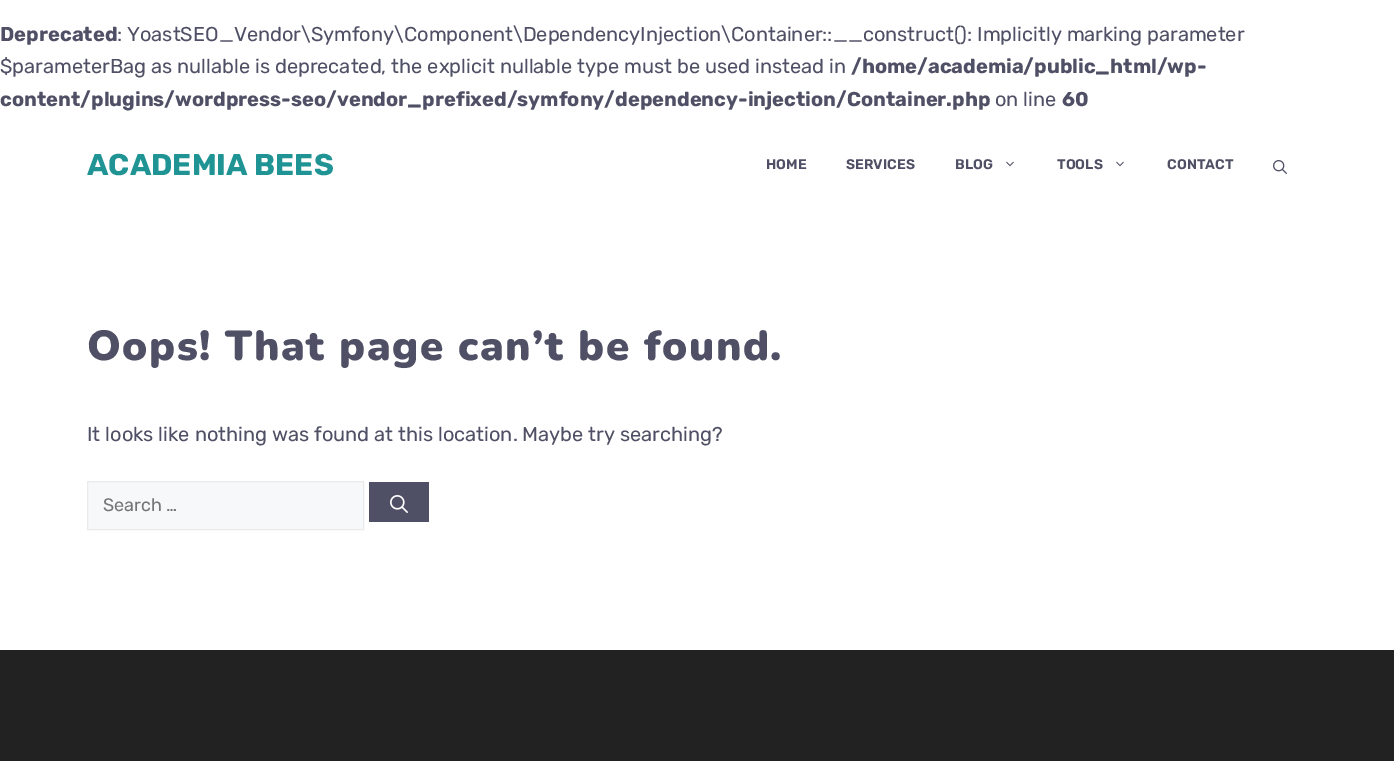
%!PS
<< /PageSize [1394 761] >> setpagedevice
/m/moveto load def
/l/rlineto load def
/z/closepath load def
/f/fill load def
/s/stroke load def
/q/gsave load def
/Q_/grestore load def
/C { dup -16 bitshift 255 div exch dup -8 bitshift 255 and 255 div exch 255 and 255 div setrgbcolor } def
/F { [ exch dup neg 0 0 3 -1 roll 0 0 ] selectfont } def
/T { moveto show } def
/R { rectfill } def
/I { 5 dict begin { /h /w /y /x /name } { exch def } forall
  gsave x y translate w h scale
  w h 8 [w 0 0 h 0 0] name (r) file false 3 colorimage grestore end } def
0 761 translate 1 -1 scale
4 setmiterlimit
16#FFFFFF C
0 0 1394 761 R
/Rubik-Bold 20 F
16#4F4F65 C
(Deprecated) 0 41 T
/Rubik-Regular 20 F
(: YoastSEO_Vendor\\Symfony\\Component\\DependencyInjection\\Container::__construct\(\): Implicitly marking parameter) 117 41 T
($parameterBag as nullable is deprecated, the explicit nullable type must be used instead in) 0 73 T
/Rubik-Bold 20 F
(/home/academia/public_html/wp-) 851 73 T
(content/plugins/wordpress-seo/vendor_prefixed/symfony/dependency-injection/Container.php) 0 106 T
/Rubik-Regular 20 F
(on line) 995 106 T
/Rubik-Bold 20 F
(60) 1062 106 T
/Rubik-Bold 30 F
16#209494 C
(ACADEMIA BEES) 87 175 T
/Rubik-SemiBold 14 F
16#4F4F65 C
(HOME) 766 169 T
(SERVICES) 846 169 T
(BLOG) 955 169 T
(1.rgb) 1006 161 8 6 I
(TOOLS) 1057 169 T
(1.rgb) 1116 161 8 6 I
(CONTACT) 1167 169 T
(2.rgb) 1273 160 14 14 I
/Nunito-Black 42 F
87 360 m 1.5 0 (Oops! That page can’t be found.) ashow
/Rubik-Regular 20 F
(It looks like nothing was found at this location. Maybe try searching?) 87 441 T
16#F7F8F9 C
87.5 481.5 m 276 0 l 0 48 l -276 0 l z q f Q_
16#EAEAEA C
s
/Rubik-Regular 18 F
16#757575 C
(Search …) 103 511 T
16#4F4F65 C
369 482 60 40 R
(3.rgb) 390 495 18 18 I
16#222222 C
0 650 1394 111 R
showpage
